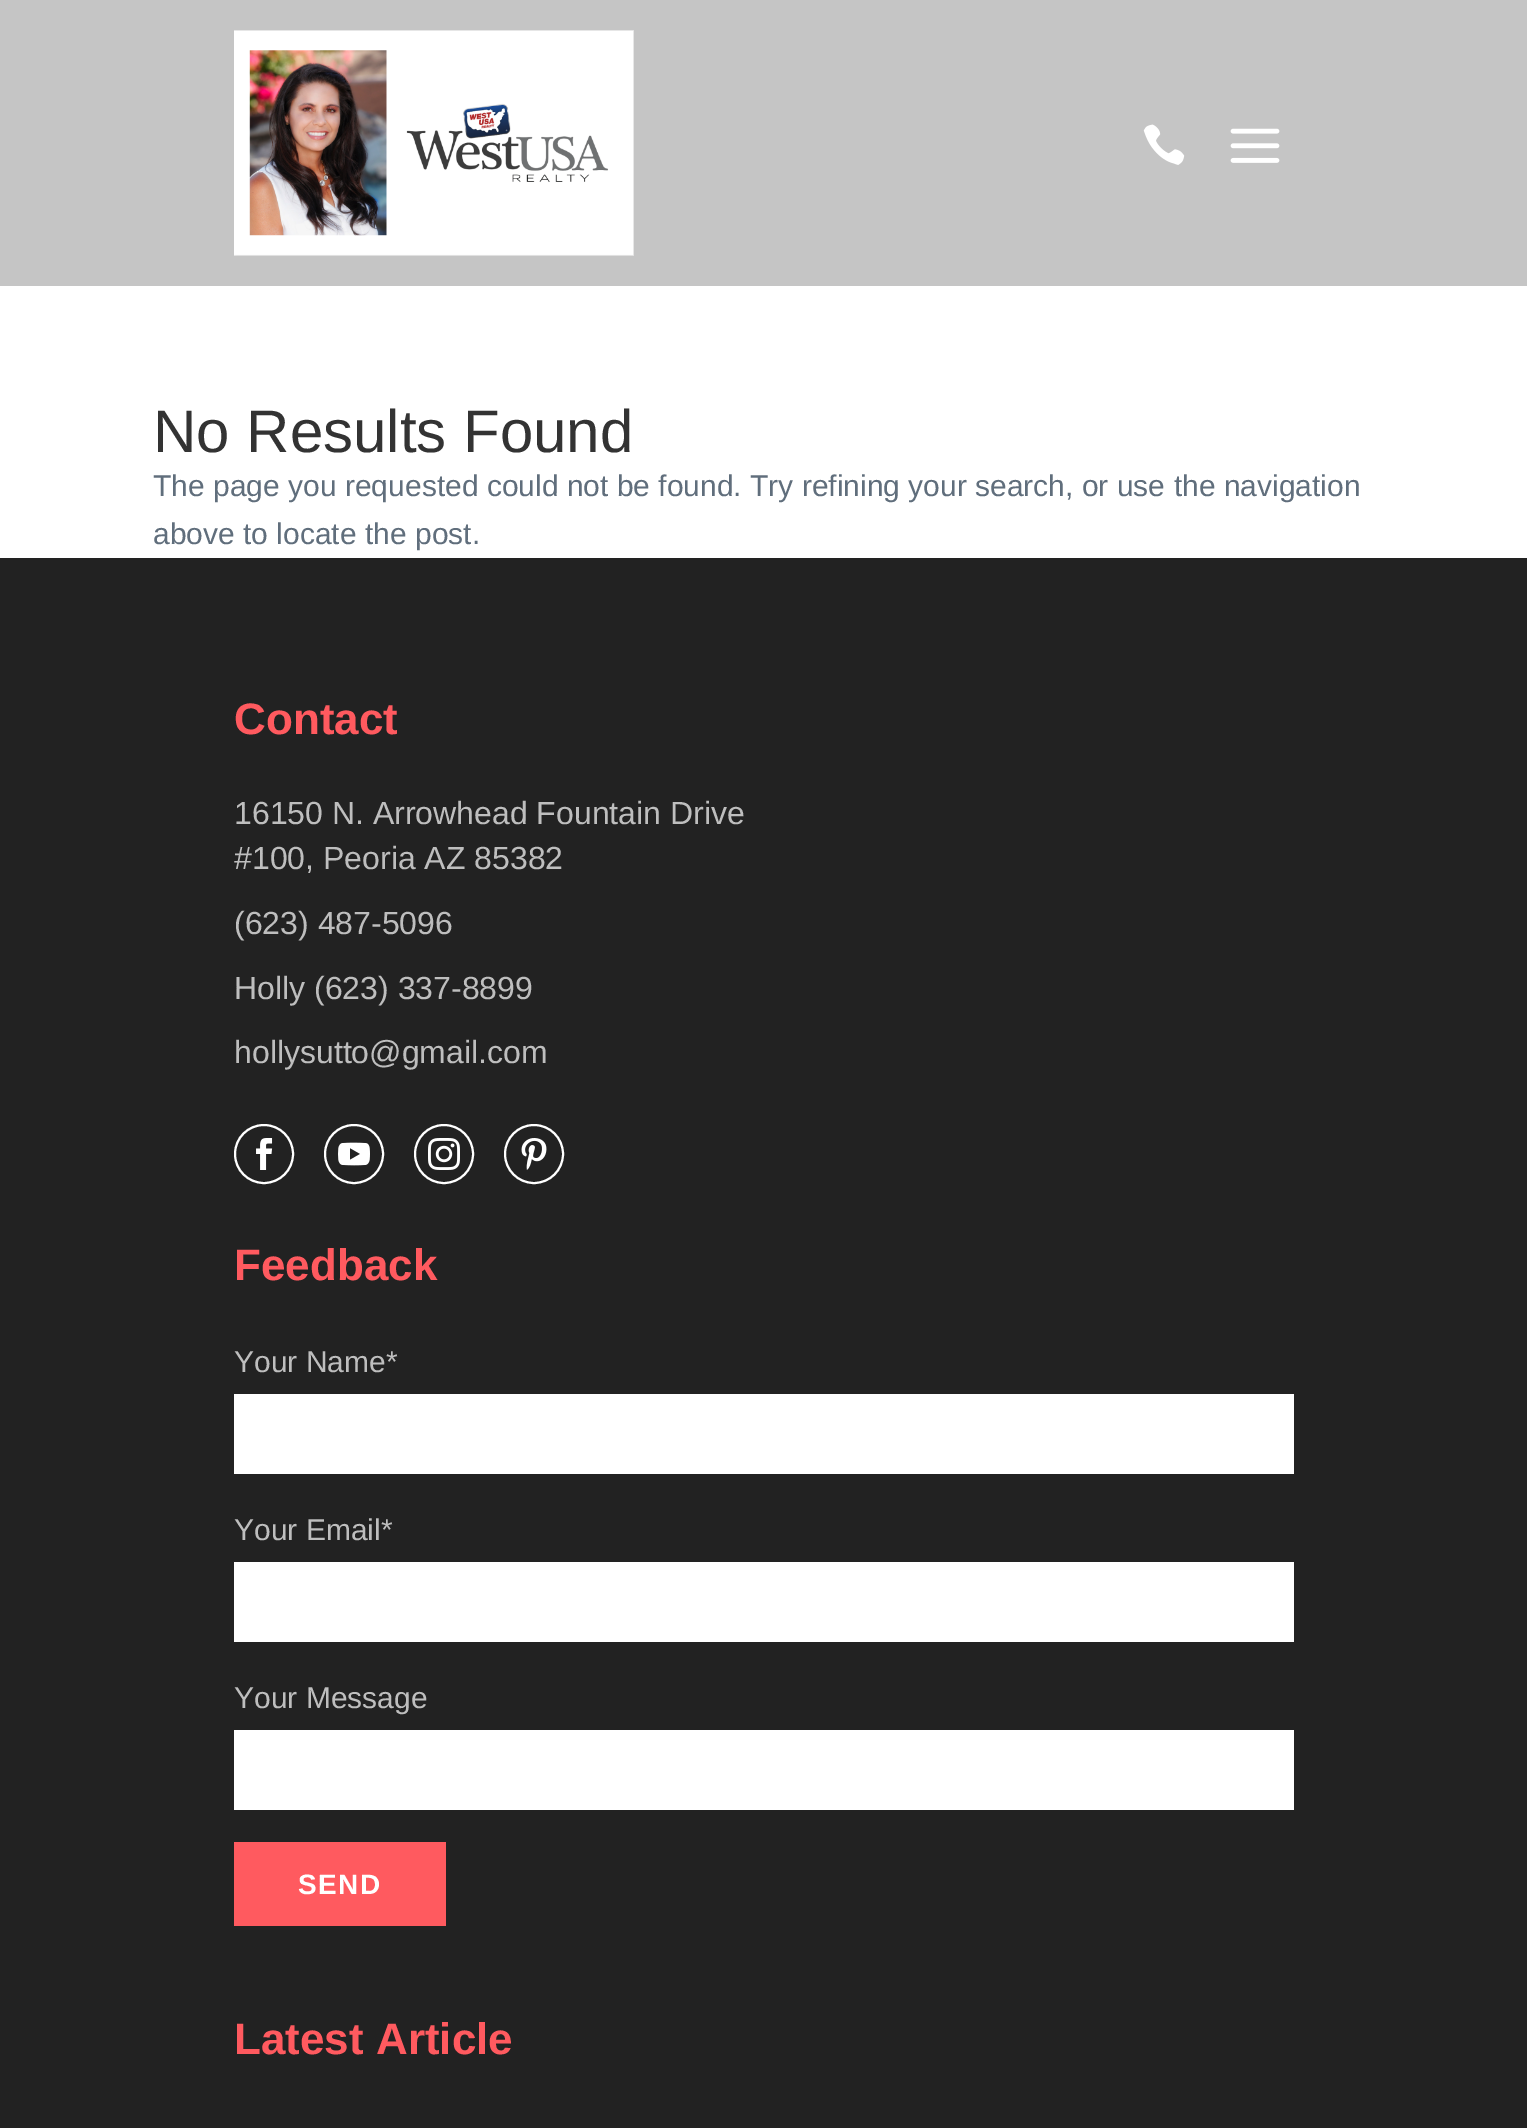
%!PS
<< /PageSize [1527 2128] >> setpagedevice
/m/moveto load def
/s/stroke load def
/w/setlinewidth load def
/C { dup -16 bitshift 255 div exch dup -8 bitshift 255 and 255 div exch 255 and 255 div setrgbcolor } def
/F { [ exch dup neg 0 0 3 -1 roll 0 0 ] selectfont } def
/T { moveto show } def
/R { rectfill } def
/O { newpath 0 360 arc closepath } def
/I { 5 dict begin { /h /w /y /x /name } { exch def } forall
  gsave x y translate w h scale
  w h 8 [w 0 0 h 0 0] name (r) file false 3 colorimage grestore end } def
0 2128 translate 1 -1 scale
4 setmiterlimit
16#FFFFFF C
0 0 1527 2128 R
16#C5C5C5 C
0 0 1527 286 R
(1.rgb) 234 30 400 226 I
(2.rgb) 1143 124 42 41 I
(3.rgb) 1230 128 50 35 I
/LiberationSans-Regular 60 F
16#333333 C
(No Results Found) 153 452 T
/LiberationSans-Regular 30 F
16#606E7C C
(The page you requested could not be found. Try refining your search, or use the navigation) 153 496 T
(above to locate the post.) 153 544 T
16#222222 C
0 558 1527 1570 R
/LiberationSans-Bold 44 F
16#FF5A5F C
(Contact) 234 734 T
/LiberationSans-Regular 32 F
16#BEBEBE C
(16150 N. Arrowhead Fountain Drive) 234 824 T
(#100, Peoria AZ 85382) 234 869 T
(\(623\) 487-5096) 234 934 T
(Holly \(623\) 337-8899) 234 999 T
(hollysutto@gmail.com) 234 1063 T
16#FFFFFF C
2 w
264 1154 29 O s
(4.rgb) 256 1138 17 32 I
354 1154 29 O s
(5.rgb) 338 1142 32 24 I
444 1154 29 O s
(6.rgb) 428 1138 32 32 I
534 1154 29 O s
(7.rgb) 521 1138 26 32 I
/LiberationSans-Bold 44 F
16#FF5A5F C
(Feedback) 234 1280 T
/LiberationSans-Regular 30 F
16#BEBEBE C
(Your Name*) 234 1372 T
16#FFFFFF C
234 1394 1060 80 R
16#BEBEBE C
(Your Email*) 234 1540 T
16#FFFFFF C
234 1562 1060 80 R
16#BEBEBE C
(Your Message) 234 1708 T
16#FFFFFF C
234 1730 1060 80 R
16#FF5A5F C
234 1842 212 84 R
/LiberationSans-Bold 28 F
16#FFFFFF C
298 1894 m 1.5 0 (SEND) ashow
/LiberationSans-Bold 44 F
16#FF5A5F C
(Latest Article) 234 2054 T
showpage
